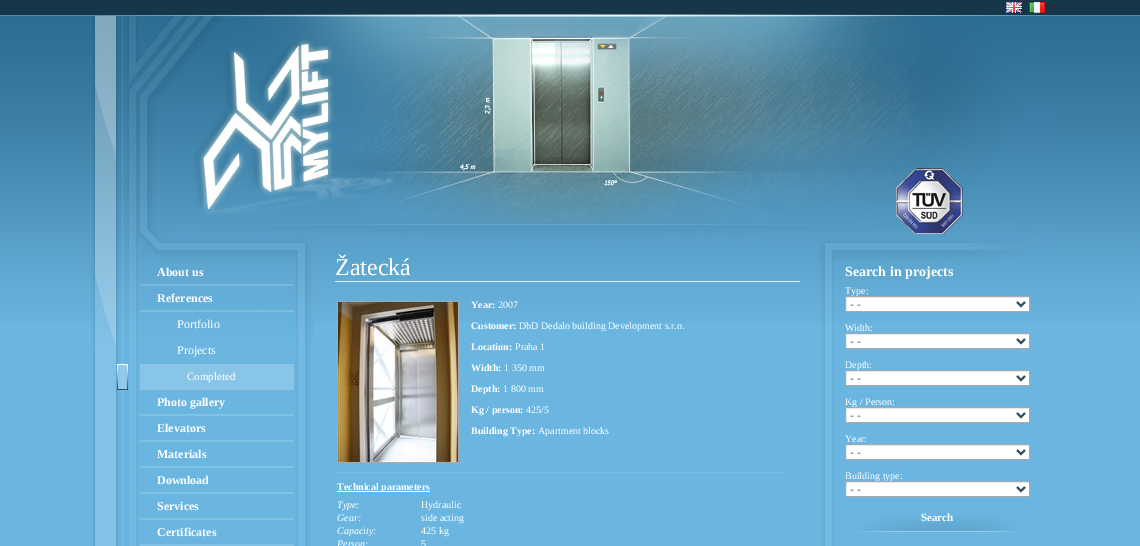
%!PS
<< /PageSize [1140 546] /PageUsesTransparency true >> setpagedevice
/m/moveto load def
/l/rlineto load def
/z/closepath load def
/f/fill load def
/s/stroke load def
/q/gsave load def
/Q_/grestore load def
/w/setlinewidth load def
/C { dup -16 bitshift 255 div exch dup -8 bitshift 255 and 255 div exch 255 and 255 div setrgbcolor } def
/F { [ exch dup neg 0 0 3 -1 roll 0 0 ] selectfont } def
/T { moveto show } def
/R { rectfill } def
/A { dup .setfillconstantalpha .setstrokeconstantalpha } def
/I { 5 dict begin { /h /w /y /x /name } { exch def } forall
  gsave x y translate w h scale
  w h 8 [w 0 0 h 0 0] name (r) file false 3 colorimage grestore end } def
0 .pushpdf14devicefilter
0 546 translate 1 -1 scale
4 setmiterlimit
16#6AB6E1 C
0 0 1140 546 R
(1.rgb) 0 0 1140 322 I
(2.rgb) 92 14 961 246 I
(3.rgb) 1006 2 16 11 I
(4.rgb) 1029 2 16 11 I
(5.rgb) 896 168 67 66 I
(6.rgb) 92 349 219 197 I
(7.rgb) 91 260 223 89 I
0.15 A
16#FFFFFF C
140 284 154 2 R
/LiberationSerif-Bold 12 F
1 A
(About us) 157 276 T
16#7DBDE0 C
140 310 154 2 R
16#FFFFFF C
(References) 157 302 T
/LiberationSerif-Regular 12 F
(Portfolio) 177 328 T
(Projects) 177 354 T
(8.rgb) 117 364 177 26 I
/LiberationSerif-Regular 11 F
(Completed) 187 380 T
16#80C1E6 C
140 414 154 2 R
/LiberationSerif-Bold 12 F
16#FFFFFF C
(Photo gallery) 157 406 T
16#80C1E6 C
140 440 154 2 R
16#FFFFFF C
(Elevators) 157 432 T
16#80C1E6 C
140 466 154 2 R
16#FFFFFF C
(Materials) 157 458 T
16#80C1E6 C
140 492 154 2 R
16#FFFFFF C
(Download) 157 484 T
16#80C1E6 C
140 518 154 2 R
16#FFFFFF C
(Services) 157 510 T
16#80C1E6 C
140 544 154 2 R
16#FFFFFF C
(Certificates) 157 536 T
16#DFEDF6 C
335 281 465 1 R
/LiberationSerif-Regular 24 F
16#FFFFFF C
(Žatecká) 335 275 T
16#A4AAB0 C
337.5 301.5 121 161 rectstroke
(9.rgb) 338 302 120 160 I
/LiberationSerif-Bold 10 F
16#FFFFFF C
(Year:) 471 308 T
/LiberationSerif-Regular 10 F
(2007) 498 308 T
/LiberationSerif-Bold 10 F
(Customer:) 471 329 T
/LiberationSerif-Regular 10 F
(DbD Dedalo building Development s.r.o.) 519 329 T
/LiberationSerif-Bold 10 F
(Location:) 471 350 T
/LiberationSerif-Regular 10 F
(Praha 1) 515 350 T
/LiberationSerif-Bold 10 F
(Width:) 471 371 T
/LiberationSerif-Regular 10 F
(1 350 mm) 504 371 T
/LiberationSerif-Bold 10 F
(Depth:) 471 392 T
/LiberationSerif-Regular 10 F
(1 800 mm) 503 392 T
/LiberationSerif-Bold 10 F
(Kg / person:) 471 413 T
/LiberationSerif-Regular 10 F
(425/5) 526 413 T
/LiberationSerif-Bold 10 F
(Building Type:) 471 434 T
/LiberationSerif-Regular 10 F
(Apartment blocks) 538 434 T
16#87C6E7 C
[1 1] 0 setdash
335 472.5 m 450 0 l s
16#FFFFFF C
337 491 93 1 R
/LiberationSerif-Bold 10 F
(Technical parameters) 337 490 T
/LiberationSerif-Italic 10 F
(Type:) 337 508 T
/LiberationSerif-Regular 10 F
(Hydraulic) 421 508 T
/LiberationSerif-Italic 10 F
(Gear:) 337 521 T
/LiberationSerif-Regular 10 F
(side acting) 421 521 T
/LiberationSerif-Italic 10 F
(Capacity:) 337 534 T
/LiberationSerif-Regular 10 F
(425 kg) 421 534 T
/LiberationSerif-Italic 10 F
(Person:) 337 547 T
/LiberationSerif-Regular 10 F
(5) 421 547 T
(10.rgb) 820 259 14 287 I
/LiberationSerif-Bold 14 F
(Search in projects) 845 276 T
/LiberationSerif-Regular 10 F
(Type:) 845 294 T
845.5 296.5 m 184 0 l 0 15 l -184 0 l z q f Q_
16#A4AAB0 C
[] 0 setdash
s
16#314E5F C
2 w
1017 302 m 4 4 l 4 -4 l s
/LiberationSans-Regular 11 F
(- -) 850 308 T
/LiberationSerif-Regular 10 F
16#FFFFFF C
(Width:) 845 331 T
845.5 333.5 m 184 0 l 0 15 l -184 0 l z q f Q_
16#A4AAB0 C
1 w
s
16#314E5F C
2 w
1017 339 m 4 4 l 4 -4 l s
/LiberationSans-Regular 11 F
(- -) 850 345 T
/LiberationSerif-Regular 10 F
16#FFFFFF C
(Depth:) 845 368 T
845.5 370.5 m 184 0 l 0 15 l -184 0 l z q f Q_
16#A4AAB0 C
1 w
s
16#314E5F C
2 w
1017 376 m 4 4 l 4 -4 l s
/LiberationSans-Regular 11 F
(- -) 850 382 T
/LiberationSerif-Regular 10 F
16#FFFFFF C
(Kg / Person:) 845 405 T
845.5 407.5 m 184 0 l 0 15 l -184 0 l z q f Q_
16#A4AAB0 C
1 w
s
16#314E5F C
2 w
1017 413 m 4 4 l 4 -4 l s
/LiberationSans-Regular 11 F
(- -) 850 419 T
/LiberationSerif-Regular 10 F
16#FFFFFF C
(Year:) 845 442 T
845.5 444.5 m 184 0 l 0 15 l -184 0 l z q f Q_
16#A4AAB0 C
1 w
s
16#314E5F C
2 w
1017 450 m 4 4 l 4 -4 l s
/LiberationSans-Regular 11 F
(- -) 850 456 T
/LiberationSerif-Regular 10 F
16#FFFFFF C
(Building type:) 845 479 T
845.5 481.5 m 184 0 l 0 15 l -184 0 l z q f Q_
16#A4AAB0 C
1 w
s
16#314E5F C
2 w
1017 487 m 4 4 l 4 -4 l s
/LiberationSans-Regular 11 F
(- -) 850 493 T
(11.rgb) 855 516 167 16 I
/LiberationSerif-Bold 11 F
16#FFFFFF C
(Search) 921 521 T
.poppdf14devicefilter showpage
